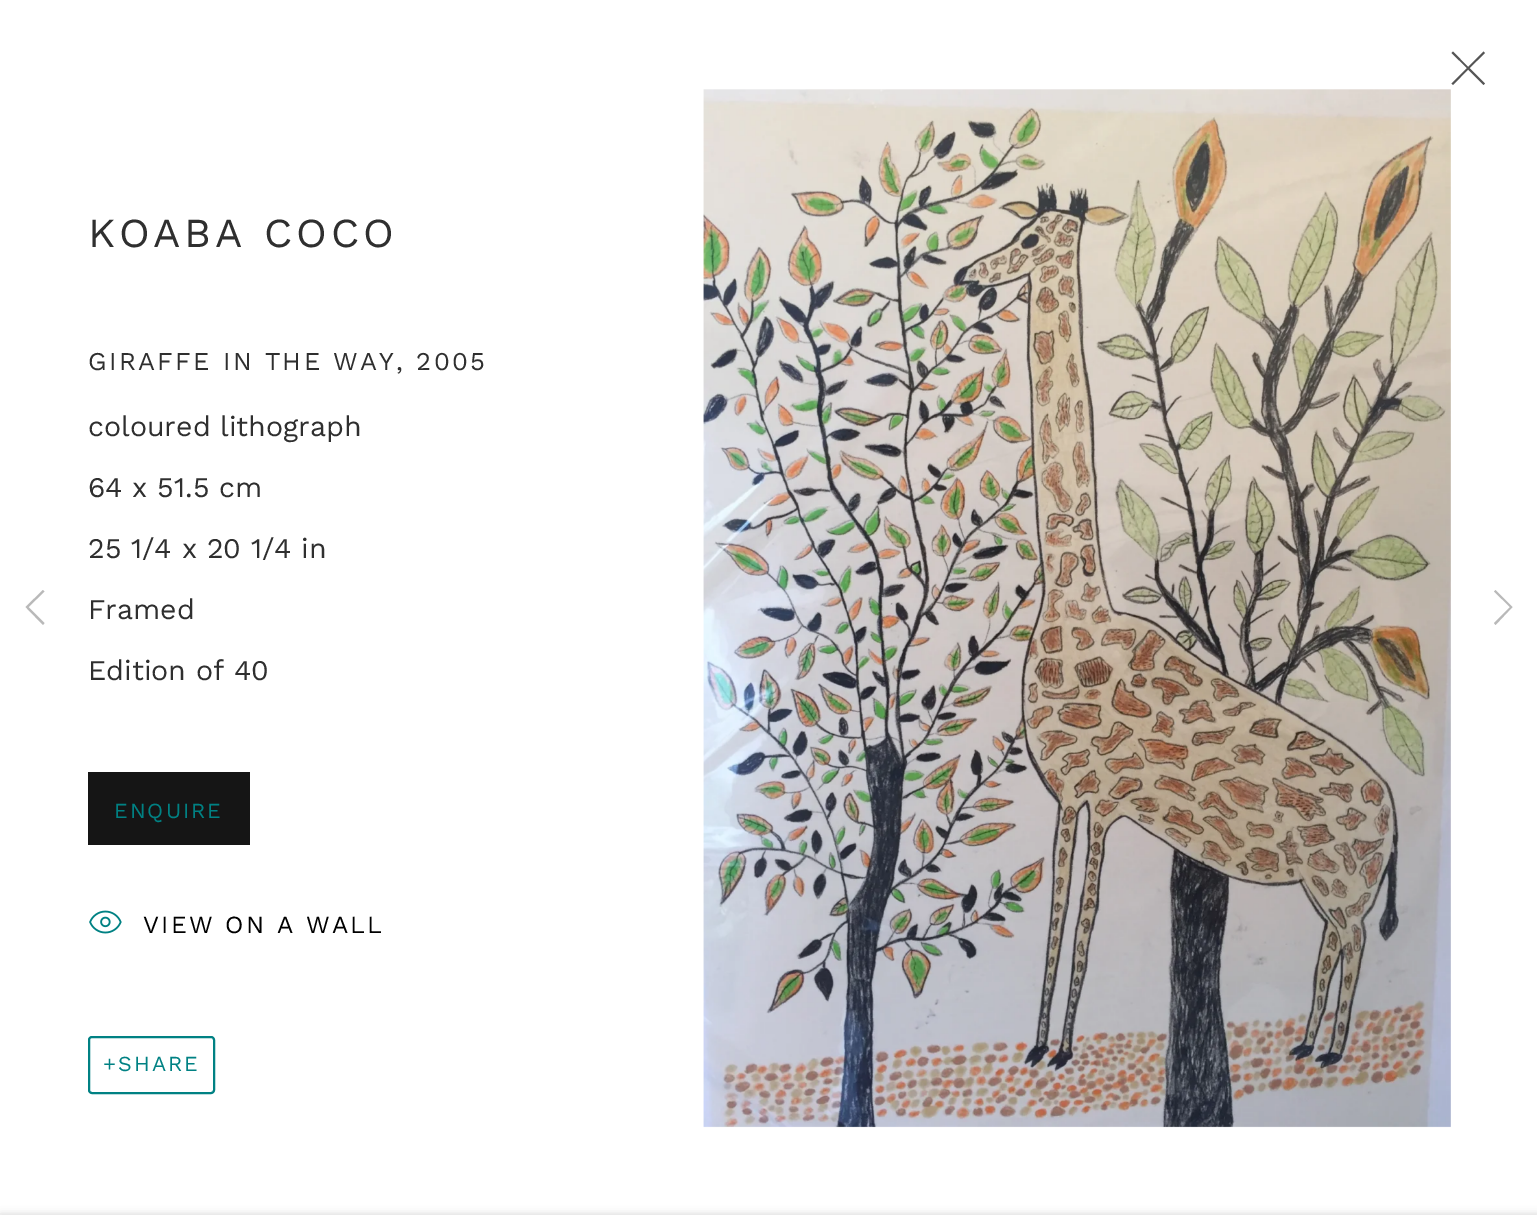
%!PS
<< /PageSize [1537 1215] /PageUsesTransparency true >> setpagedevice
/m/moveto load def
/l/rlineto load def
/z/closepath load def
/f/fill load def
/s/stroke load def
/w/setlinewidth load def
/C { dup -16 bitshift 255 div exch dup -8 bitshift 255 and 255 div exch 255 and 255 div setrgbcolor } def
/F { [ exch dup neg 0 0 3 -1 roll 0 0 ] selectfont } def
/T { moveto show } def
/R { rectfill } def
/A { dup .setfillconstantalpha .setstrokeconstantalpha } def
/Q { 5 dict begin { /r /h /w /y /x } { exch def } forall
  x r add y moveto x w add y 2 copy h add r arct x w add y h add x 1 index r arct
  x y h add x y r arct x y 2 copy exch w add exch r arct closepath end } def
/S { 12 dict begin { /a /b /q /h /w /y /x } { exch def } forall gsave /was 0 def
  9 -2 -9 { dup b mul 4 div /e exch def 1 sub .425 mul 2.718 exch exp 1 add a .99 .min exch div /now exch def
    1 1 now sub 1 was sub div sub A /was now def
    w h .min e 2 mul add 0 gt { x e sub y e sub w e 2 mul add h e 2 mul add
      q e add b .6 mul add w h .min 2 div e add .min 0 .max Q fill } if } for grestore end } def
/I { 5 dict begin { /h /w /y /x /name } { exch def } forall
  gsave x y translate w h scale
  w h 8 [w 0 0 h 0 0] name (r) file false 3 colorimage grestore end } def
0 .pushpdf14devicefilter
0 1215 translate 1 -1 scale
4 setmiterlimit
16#FFFFFF C
0 0 1537 1215 R
16#555555 C
1485 53 m -1.5 -1.5 l -15.5 15.5 l -15 -15.5 l -1.5 1.5 l 15.5 15 l -15.5 15.5 l 1.5 1.5 l 15 -15.5 l 15.5 15.5 l 1.5 -1.5 l -15.5 -15.5 l z f
/WorkSans-Regular 41.25 F
16#2F2F2F C
88 247 m 3.75 0 (KOABA COCO) ashow
/WorkSans-Regular 25.6 F
88 370 m 2.3 0 (GIRAFFE IN THE WAY, 2005) ashow
/WorkSans-Regular 28.5 F
(coloured lithograph) 88 436 T
(64 x 51.5 cm) 88 497 T
(25 1/4 x 20 1/4 in) 88 558 T
(Framed) 88 619 T
(Edition of 40) 88 680 T
16#151515 C
88 772 162 73 R
/WorkSans-Regular 21.5 F
16#008183 C
114 818 m 2 0 (ENQUIRE) ashow
(1.rgb) 89 910 33 24 I
/WorkSans-Regular 24.6 F
16#000000 C
143 933 m 2.25 0 (VIEW ON A WALL) ashow
16#008183 C
2 w
89 1037 125 56 3 Q s
/WorkSans-Regular 21.5 F
103 1071 m 2 0 (+SHARE) ashow
(2.rgb) 703 89 748 1039 I
16#B9B9B9 C
27 608.5 m 16 16.5 l 1.5 -2 l -16 -16 l 16 -15.5 l -1.5 -1.5 l -17.5 17 l z f
1512.5 607 m -17 -17 l -1.5 1.5 l 16 15.5 l -16 16 l 1.5 2 l z f
16#000000 C
0 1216 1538 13 0 4.5 .23 S
.poppdf14devicefilter showpage
